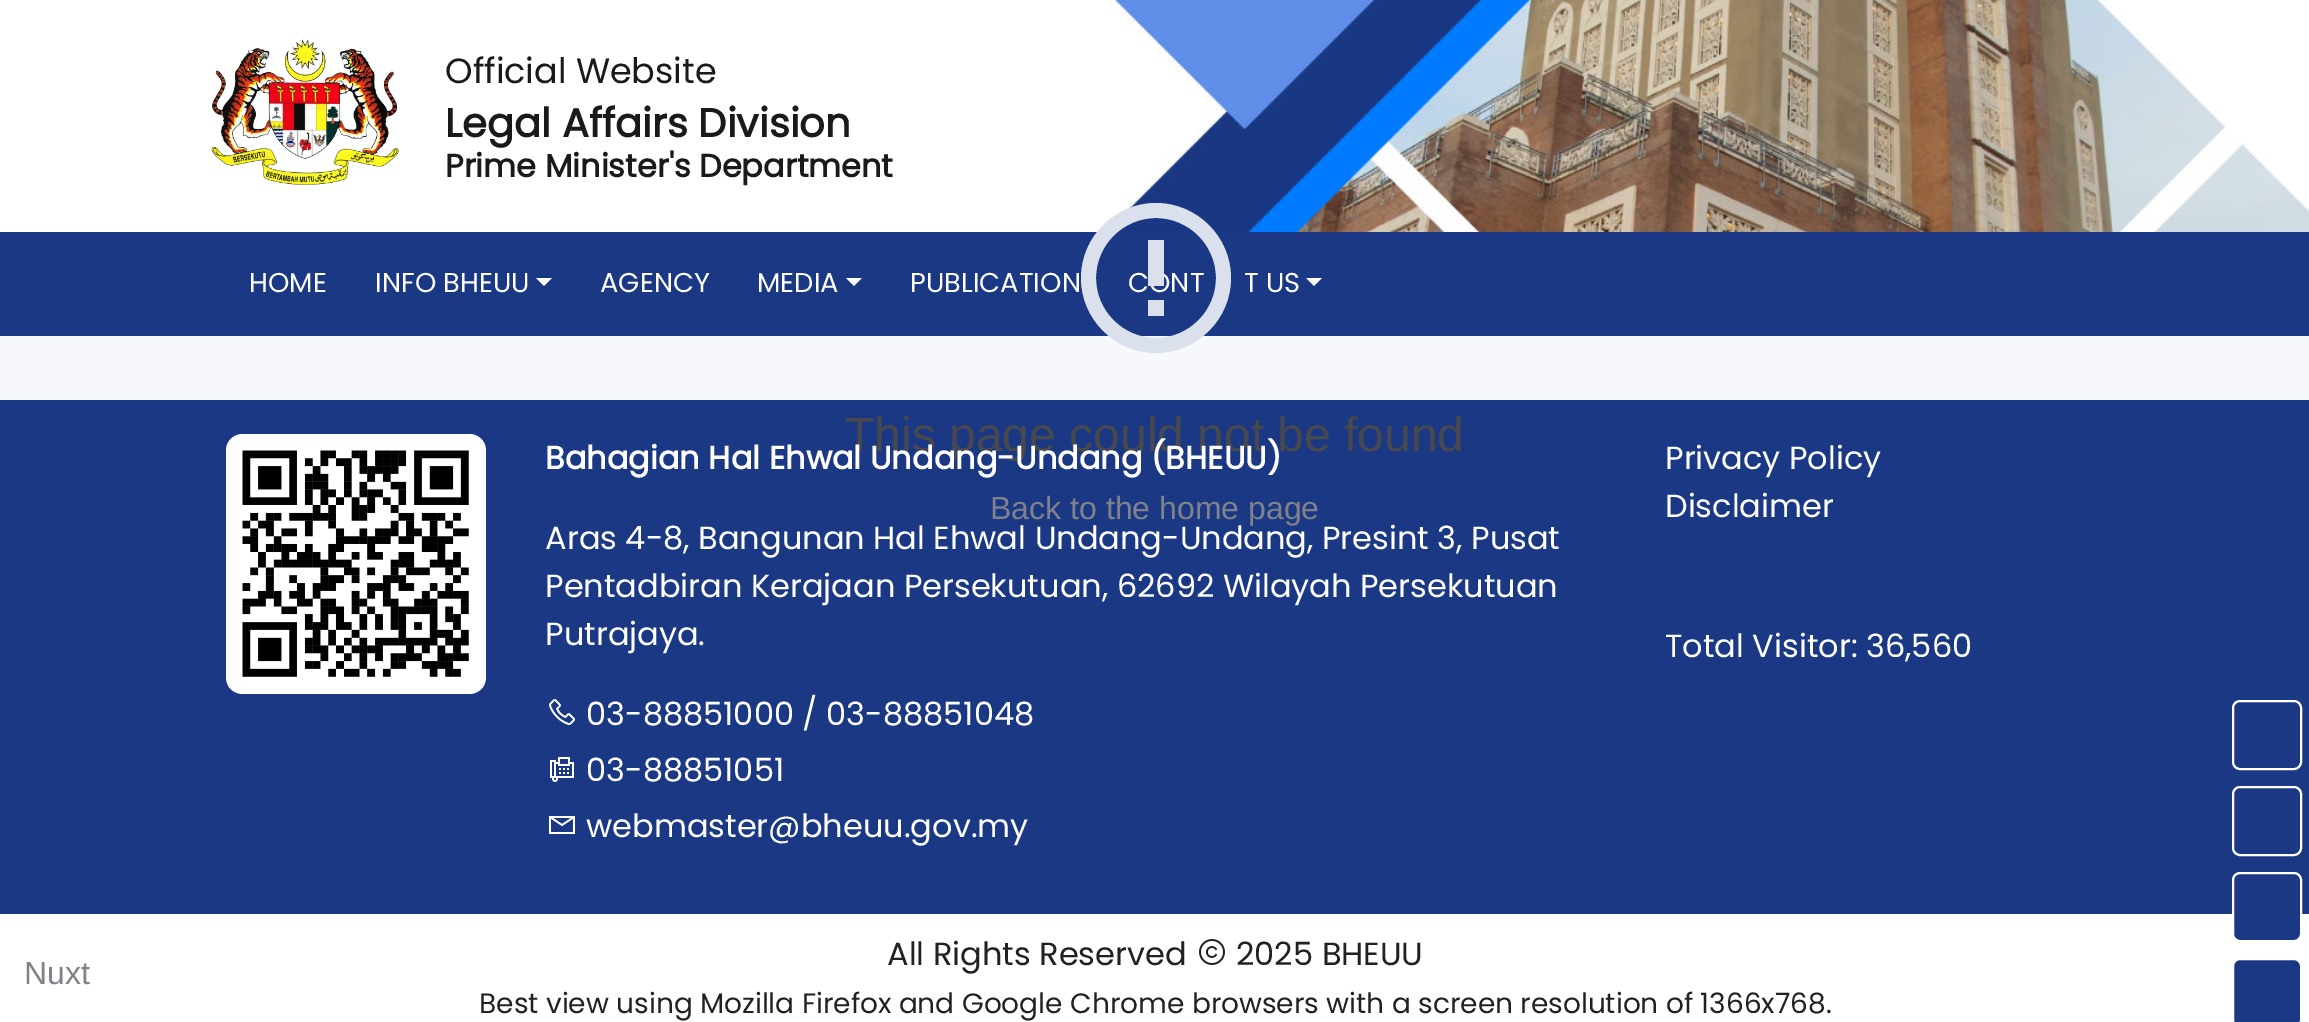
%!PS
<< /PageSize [2309 1022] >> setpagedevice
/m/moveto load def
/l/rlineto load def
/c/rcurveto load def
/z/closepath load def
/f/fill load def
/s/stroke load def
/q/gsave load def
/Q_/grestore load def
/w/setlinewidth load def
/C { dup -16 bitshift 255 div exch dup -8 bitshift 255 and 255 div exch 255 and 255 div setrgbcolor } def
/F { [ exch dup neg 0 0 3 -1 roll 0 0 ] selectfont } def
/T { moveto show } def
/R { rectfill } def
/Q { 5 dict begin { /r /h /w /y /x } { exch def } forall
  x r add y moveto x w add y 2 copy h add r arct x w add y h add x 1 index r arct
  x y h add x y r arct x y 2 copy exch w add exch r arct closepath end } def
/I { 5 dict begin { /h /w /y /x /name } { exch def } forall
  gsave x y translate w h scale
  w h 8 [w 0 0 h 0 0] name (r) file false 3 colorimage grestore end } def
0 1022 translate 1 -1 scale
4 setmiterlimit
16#FFFFFF C
0 0 2309 1022 R
(1.rgb) 211 39 188 146 I
/Poppins-Regular 35 F
16#1A1A1A C
(Official Website) 445 83 T
/Poppins-Bold 40 F
(Legal Affairs Division) 445 137 T
/Poppins-Bold 32 F
(Prime Minister's Department) 445 177 T
(2.rgb) 1100 0 1209 232 I
16#1A3883 C
0 232 2309 104 R
/Poppins-Regular 27.25 F
16#FFFFFF C
(HOME) 249 292 T
(INFO BHEUU) 375 292 T
536 278 m 16 0 l -8 8 l z f
(AGENCY) 600 292 T
(MEDIA) 757 292 T
846 278 m 16 0 l -8 8 l z f
(PUBLICATION) 910 292 T
(CONT) 1128 292 T
(T US) 1244 292 T
1306 278 m 16 0 l -8 8 l z f
16#F7F8FB C
0 336 2309 64 R
16#DBE1EC C
1148 300 m 16 0 l 0 16 l -16 0 l z 1148 240 m 16 0 l 0 46 l -16 0 l z 1156 203 m -41 0 -75 34 -75 75 c 0 41 34 75 75 75 c 41 0 75 -34 75 -75 c 0 -41 -34 -75 -75 -75 c z 1156 338 m -33 0 -60 -27 -60 -60 c 0 -33 27 -60 60 -60 c 33 0 60 27 60 60 c 0 33 -27 60 -60 60 c z f
16#1A3883 C
0 400 2309 514 R
/LiberationSans-Regular 48 F
16#47494E C
(This page could not be found) 845 451 T
/LiberationSans-Regular 32 F
16#7F828B C
(Back to the home page) 990 519 T
(Nuxt) 24 984 T
(3.rgb) 226 434 260 260 I
/Poppins-Bold 32 F
16#FFFFFF C
(Bahagian Hal Ehwal Undang-Undang \(BHEUU\)) 545 469 T
/Poppins-Regular 32 F
(Aras 4-8, Bangunan Hal Ehwal Undang-Undang, Presint 3, Pusat) 545 549 T
(Pentadbiran Kerajaan Persekutuan, 62692 Wilayah Persekutuan) 545 597 T
(Putrajaya.) 545 645 T
(4.rgb) 549 699 26 26 I
(03-88851000 / 03-88851048) 586 725 T
(5.rgb) 550 757 24 25 I
(03-88851051) 586 781 T
(6.rgb) 549 816 26 18 I
(webmaster@bheuu.gov.my) 586 837 T
(Privacy Policy) 1665 469 T
(Disclaimer) 1665 517 T
(Total Visitor: 36,560) 1665 657 T
16#212121 C
(All Rights Reserved) 887 965 T
(7.rgb) 1199 939 26 26 I
(2025 BHEUU) 1236 965 T
/Poppins-Regular 28 F
(Best view using Mozilla Firefox and Google Chrome browsers with a screen resolution of 1366x768.) 479 1013 T
16#FFFFFF C
2 w
2233 701 68 68 7 Q s
2233 787 68 68 7 Q s
16#1A3883 C
2233 873 68 68 7 Q q f Q_
16#FFFFFF C
s
16#1A3883 C
2233 959 68 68 7 Q q f Q_
16#FFFFFF C
s
showpage
